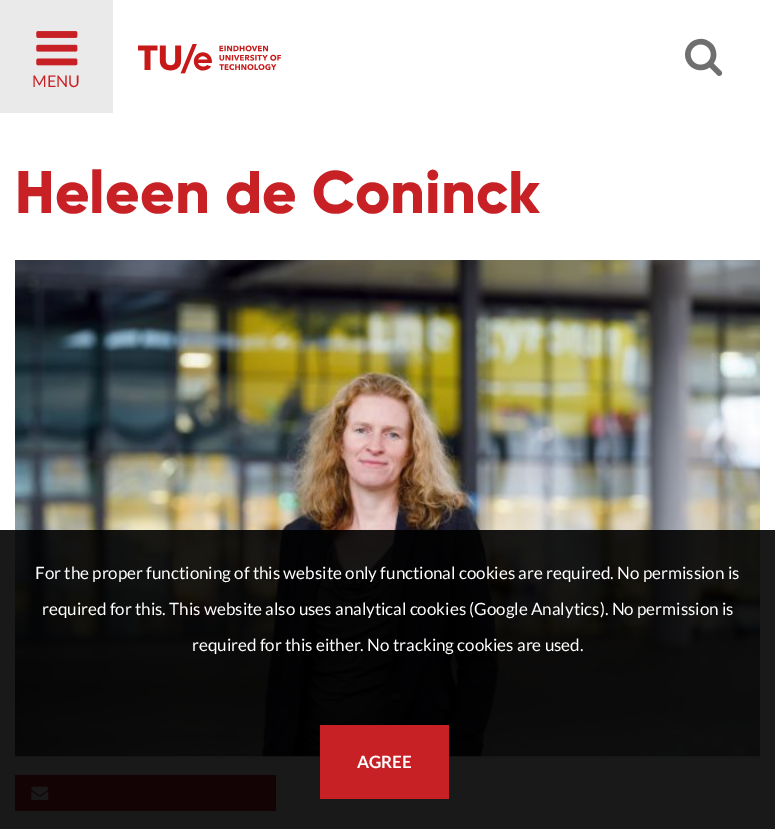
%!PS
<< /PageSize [775 829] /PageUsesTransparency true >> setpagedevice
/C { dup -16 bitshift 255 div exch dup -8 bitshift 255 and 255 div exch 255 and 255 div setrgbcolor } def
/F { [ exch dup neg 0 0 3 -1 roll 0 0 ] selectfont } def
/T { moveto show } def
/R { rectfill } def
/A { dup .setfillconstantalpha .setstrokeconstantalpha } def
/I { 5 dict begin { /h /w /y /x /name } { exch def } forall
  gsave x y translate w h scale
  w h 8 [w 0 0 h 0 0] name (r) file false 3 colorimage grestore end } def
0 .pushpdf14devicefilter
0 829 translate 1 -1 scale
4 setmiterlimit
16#FFFFFF C
0 0 775 829 R
(1.rgb) 138 44 143 30 I
(2.rgb) 685 38 38 38 I
16#EAEAEA C
0 0 113 113 R
(3.rgb) 36 31 42 35 I
/Lato-Regular 16 F
16#C72125 C
(MENU) 32 87 T
/Gilroy-ExtraBold 60 F
(Heleen de Coninck) 15 213 T
(4.rgb) 15 260 745 497 I
15 775 261 36 R
(5.rgb) 31 786 18 15 I
0.9 A
16#000000 C
0 530 775 299 R
/Lato-Regular 17 F
1 A
16#FFFFFF C
(For the proper functioning of this website only functional cookies are required. No permission is) 35 579 T
(required for this. This website also uses analytical cookies \(Google Analytics\). No permission is) 42 615 T
(required for this either. No tracking cookies are used.) 192 651 T
16#C72125 C
320 725 129 74 R
/Lato-Bold 17 F
16#FFFFFF C
(AGREE) 357 768 T
.poppdf14devicefilter showpage
